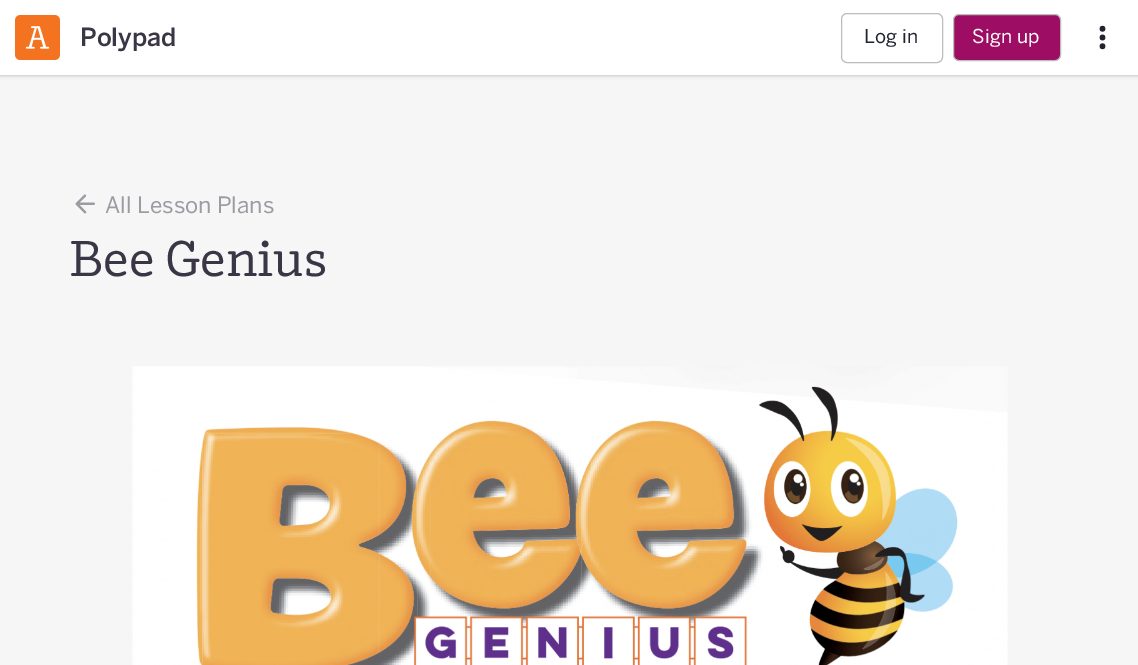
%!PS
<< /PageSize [1138 665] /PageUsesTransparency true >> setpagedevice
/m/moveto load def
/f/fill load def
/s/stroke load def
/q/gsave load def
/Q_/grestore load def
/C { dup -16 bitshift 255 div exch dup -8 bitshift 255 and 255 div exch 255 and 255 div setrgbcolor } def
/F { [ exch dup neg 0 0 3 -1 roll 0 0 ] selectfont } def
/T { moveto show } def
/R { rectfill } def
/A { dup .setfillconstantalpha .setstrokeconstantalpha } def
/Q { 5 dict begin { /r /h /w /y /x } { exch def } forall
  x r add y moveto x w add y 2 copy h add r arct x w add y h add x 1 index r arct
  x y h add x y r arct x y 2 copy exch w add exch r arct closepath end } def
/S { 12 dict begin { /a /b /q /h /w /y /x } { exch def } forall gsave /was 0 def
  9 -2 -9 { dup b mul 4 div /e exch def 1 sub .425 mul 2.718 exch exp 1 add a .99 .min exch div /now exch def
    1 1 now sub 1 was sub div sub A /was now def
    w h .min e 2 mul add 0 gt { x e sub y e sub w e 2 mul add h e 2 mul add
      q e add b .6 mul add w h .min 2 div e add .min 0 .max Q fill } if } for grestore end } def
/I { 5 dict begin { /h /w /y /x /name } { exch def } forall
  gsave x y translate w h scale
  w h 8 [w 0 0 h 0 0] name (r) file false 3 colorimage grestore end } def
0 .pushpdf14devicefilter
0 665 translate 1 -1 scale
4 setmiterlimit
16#F6F6F6 C
0 0 1138 665 R
16#000000 C
0 1 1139 75 0 2 .07 S
0 1 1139 75 0 1 .12 S
16#FFFFFF C
0 0 1138 75 R
(1.rgb) 15 15 45 45 I
/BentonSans-Medium 25 F
16#3A3645 C
(Polypad) 80 46 T
16#BDBDBD C
841.5 13.5 101 49 5.5 Q s
/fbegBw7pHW-Regular 19 F
16#20242F C
864 43 m .25 0 (Log in) ashow
16#9C0D63 C
953.5 14.5 107 46 5.5 Q q f Q_
16#BDBDBD C
s
16#FFFFFF C
972 43 m .25 0 (Sign up) ashow
(2.rgb) 1099 25 7 25 I
(3.rgb) 75 194 20 20 I
/fbegBw7pHW-Regular 22.5 F
16#9D9BA2 C
(All Lesson Plans) 105 213 T
/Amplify-Regular 50 F
16#3A3645 C
(Bee Genius) 69 276 T
(4.rgb) 132 366 876 299 I
.poppdf14devicefilter showpage
